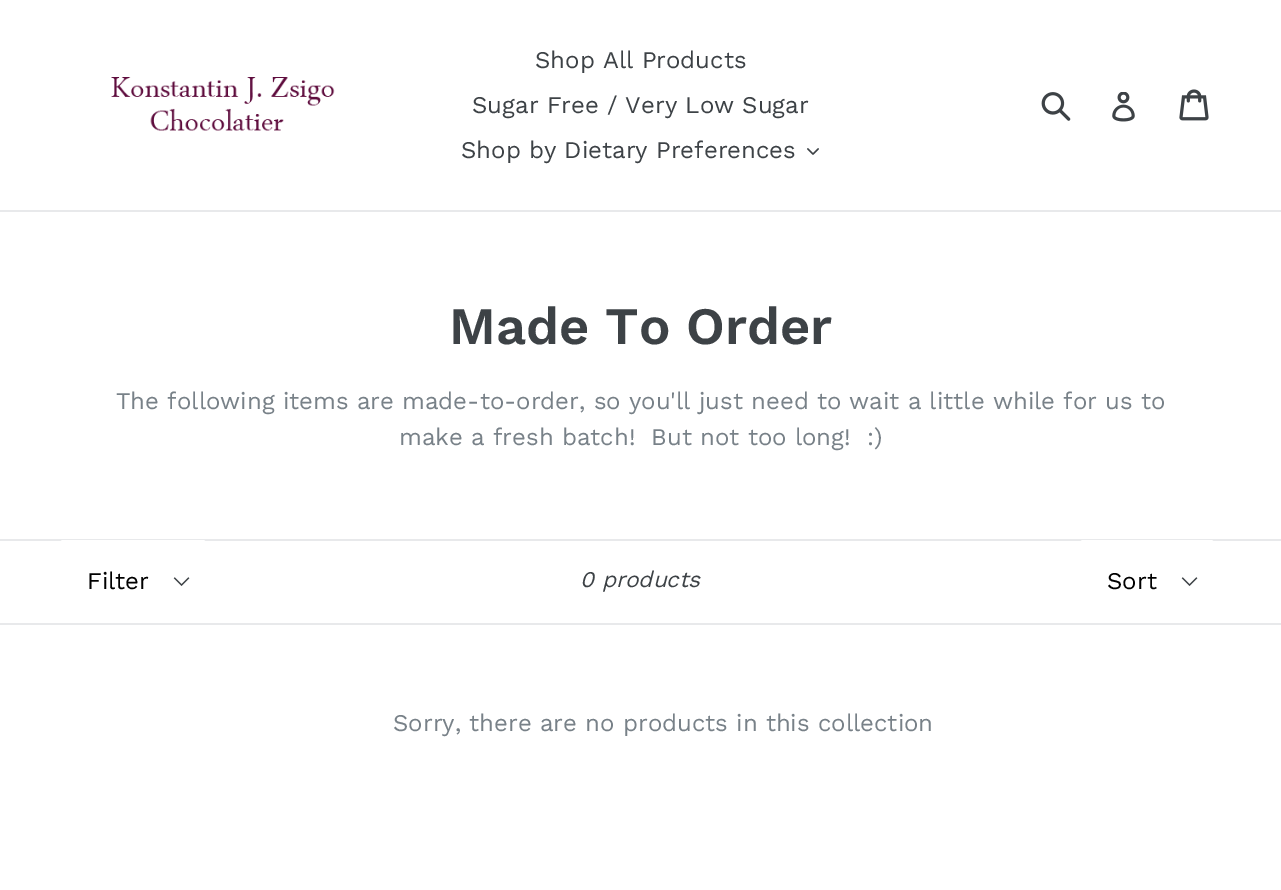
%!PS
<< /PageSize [1281 890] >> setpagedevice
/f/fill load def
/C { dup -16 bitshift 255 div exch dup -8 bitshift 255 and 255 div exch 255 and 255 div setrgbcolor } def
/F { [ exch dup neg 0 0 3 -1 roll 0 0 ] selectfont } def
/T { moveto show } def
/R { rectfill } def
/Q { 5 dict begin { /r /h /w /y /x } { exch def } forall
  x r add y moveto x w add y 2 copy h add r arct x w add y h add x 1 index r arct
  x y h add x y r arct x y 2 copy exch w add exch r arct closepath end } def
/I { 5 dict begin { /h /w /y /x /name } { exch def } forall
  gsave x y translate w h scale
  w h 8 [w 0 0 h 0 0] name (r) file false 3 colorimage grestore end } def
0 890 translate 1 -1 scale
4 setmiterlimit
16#FFFFFF C
0 0 1281 890 R
16#E8E9EB C
0 210 1281 2 R
(1.rgb) 111 77 224 54 I
/WorkSans-Regular 24 F
16#3D4246 C
(Shop All Products) 535 68 T
(Sugar Free / Very Low Sugar) 472 113 T
(Shop by Dietary Preferences) 461 158 T
(2.rgb) 807 148 12 7 I
(3.rgb) 1041 92 30 29 I
(4.rgb) 1112 92 23 30 I
(5.rgb) 1179 89 30 32 I
/WorkSans-SemiBold 52.5 F
(Made To Order) 449 344 T
/WorkSans-Regular 24 F
16#788188 C
(The following items are made-to-order, so you'll just need to wait a little while for us to) 116 409 T
(make a fresh batch!  But not too long!  :\)) 399 445 T
16#E8E9EB C
0 539 1281 2 R
0 623 1281 2 R
16#FFFFFF C
60 540 146 83 3 Q f
(6.rgb) 173 577 17 9 I
16#000000 C
(Filter) 87 589 T
/WorkSans-Italic 22.5 F
16#3D4246 C
(0 products) 580 587 T
16#FFFFFF C
1080 540 134 83 3 Q f
(6.rgb) 1181 577 17 9 I
/WorkSans-Regular 24 F
16#000000 C
(Sort) 1107 589 T
16#788188 C
(Sorry, there are no products in this collection) 393 731 T
showpage
